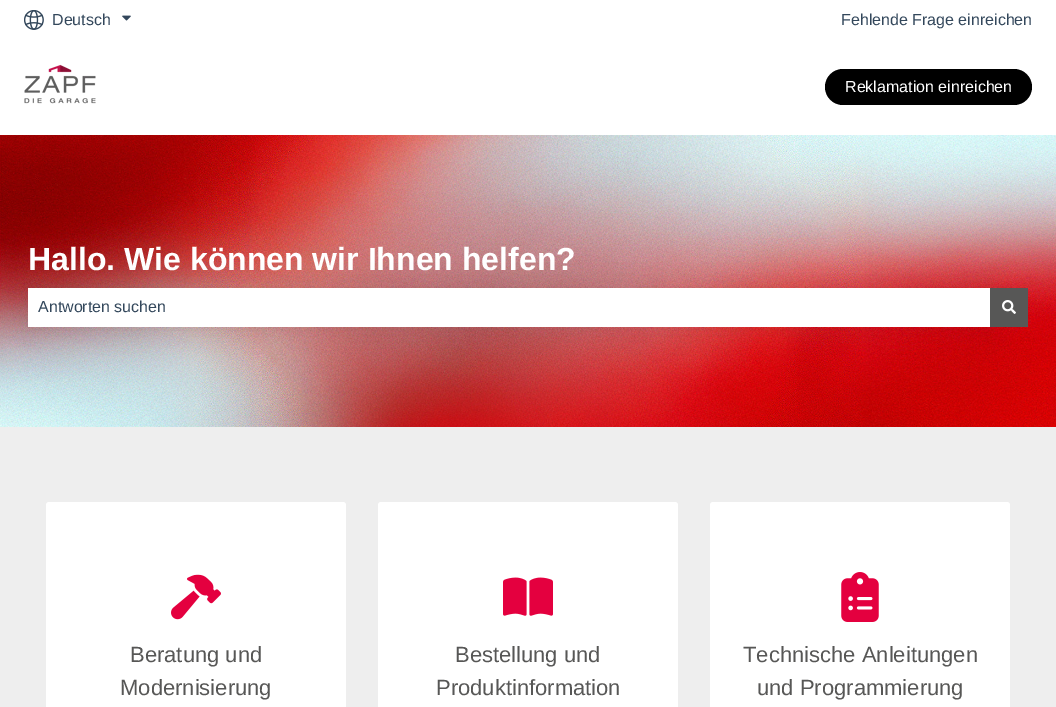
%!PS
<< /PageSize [1056 707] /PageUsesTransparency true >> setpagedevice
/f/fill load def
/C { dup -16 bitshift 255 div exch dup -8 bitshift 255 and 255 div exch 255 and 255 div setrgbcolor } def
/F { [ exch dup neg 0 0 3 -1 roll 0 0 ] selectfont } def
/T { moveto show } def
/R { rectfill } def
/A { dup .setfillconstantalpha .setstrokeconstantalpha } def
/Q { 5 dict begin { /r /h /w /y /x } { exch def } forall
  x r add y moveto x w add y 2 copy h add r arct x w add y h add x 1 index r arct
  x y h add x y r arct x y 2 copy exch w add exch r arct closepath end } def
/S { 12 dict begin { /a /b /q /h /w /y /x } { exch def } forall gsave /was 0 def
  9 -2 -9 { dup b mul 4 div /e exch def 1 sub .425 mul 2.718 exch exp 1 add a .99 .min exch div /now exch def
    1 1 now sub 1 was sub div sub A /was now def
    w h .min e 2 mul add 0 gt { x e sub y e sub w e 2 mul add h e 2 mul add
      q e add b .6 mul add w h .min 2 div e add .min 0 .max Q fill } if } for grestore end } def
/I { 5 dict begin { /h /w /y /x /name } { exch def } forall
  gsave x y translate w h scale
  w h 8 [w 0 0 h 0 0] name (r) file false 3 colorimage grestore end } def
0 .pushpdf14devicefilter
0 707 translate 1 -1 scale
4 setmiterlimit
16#FFFFFF C
0 0 1056 707 R
(1.rgb) 24 10 20 20 I
/LiberationSans-Regular 16 F
16#33475B C
(Deutsch) 52 25 T
(2.rgb) 122 15 9 6 I
(Fehlende Frage einreichen) 841 25 T
(3.rgb) 24 64 72 40 I
16#000000 C
825 69 207 36 18 Q f
16#FFFFFF C
(Reklamation einreichen) 845 92 T
(4.rgb) 0 135 1056 292 I
/LiberationSans-Bold 32 F
(Hallo. Wie können wir Ihnen helfen?) 28 270 T
16#000000 C
28 289 962 39 0 12 .08 S
16#FFFFFF C
28 288 962 39 R
/LiberationSans-Regular 16 F
16#33475B C
(Antworten suchen) 38 312 T
16#575756 C
990 288 38 39 R
(5.rgb) 1002 300 14 14 I
16#EEEEEE C
0 427 1056 280 R
16#FFFFFF C
46 502 300 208 3 Q f
(6.rgb) 171 574 50 46 I
/LiberationSans-Regular 22 F
16#575756 C
(Beratung und) 130 662 T
(Modernisierung) 120 695 T
16#FFFFFF C
378 502 300 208 3 Q f
(7.rgb) 503 577 50 39 I
16#575756 C
(Bestellung und) 455 662 T
(Produktinformation) 436 695 T
16#FFFFFF C
710 502 300 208 3 Q f
(8.rgb) 841 572 38 50 I
16#575756 C
(Technische Anleitungen) 743 662 T
(und Programmierung) 757 695 T
.poppdf14devicefilter showpage
